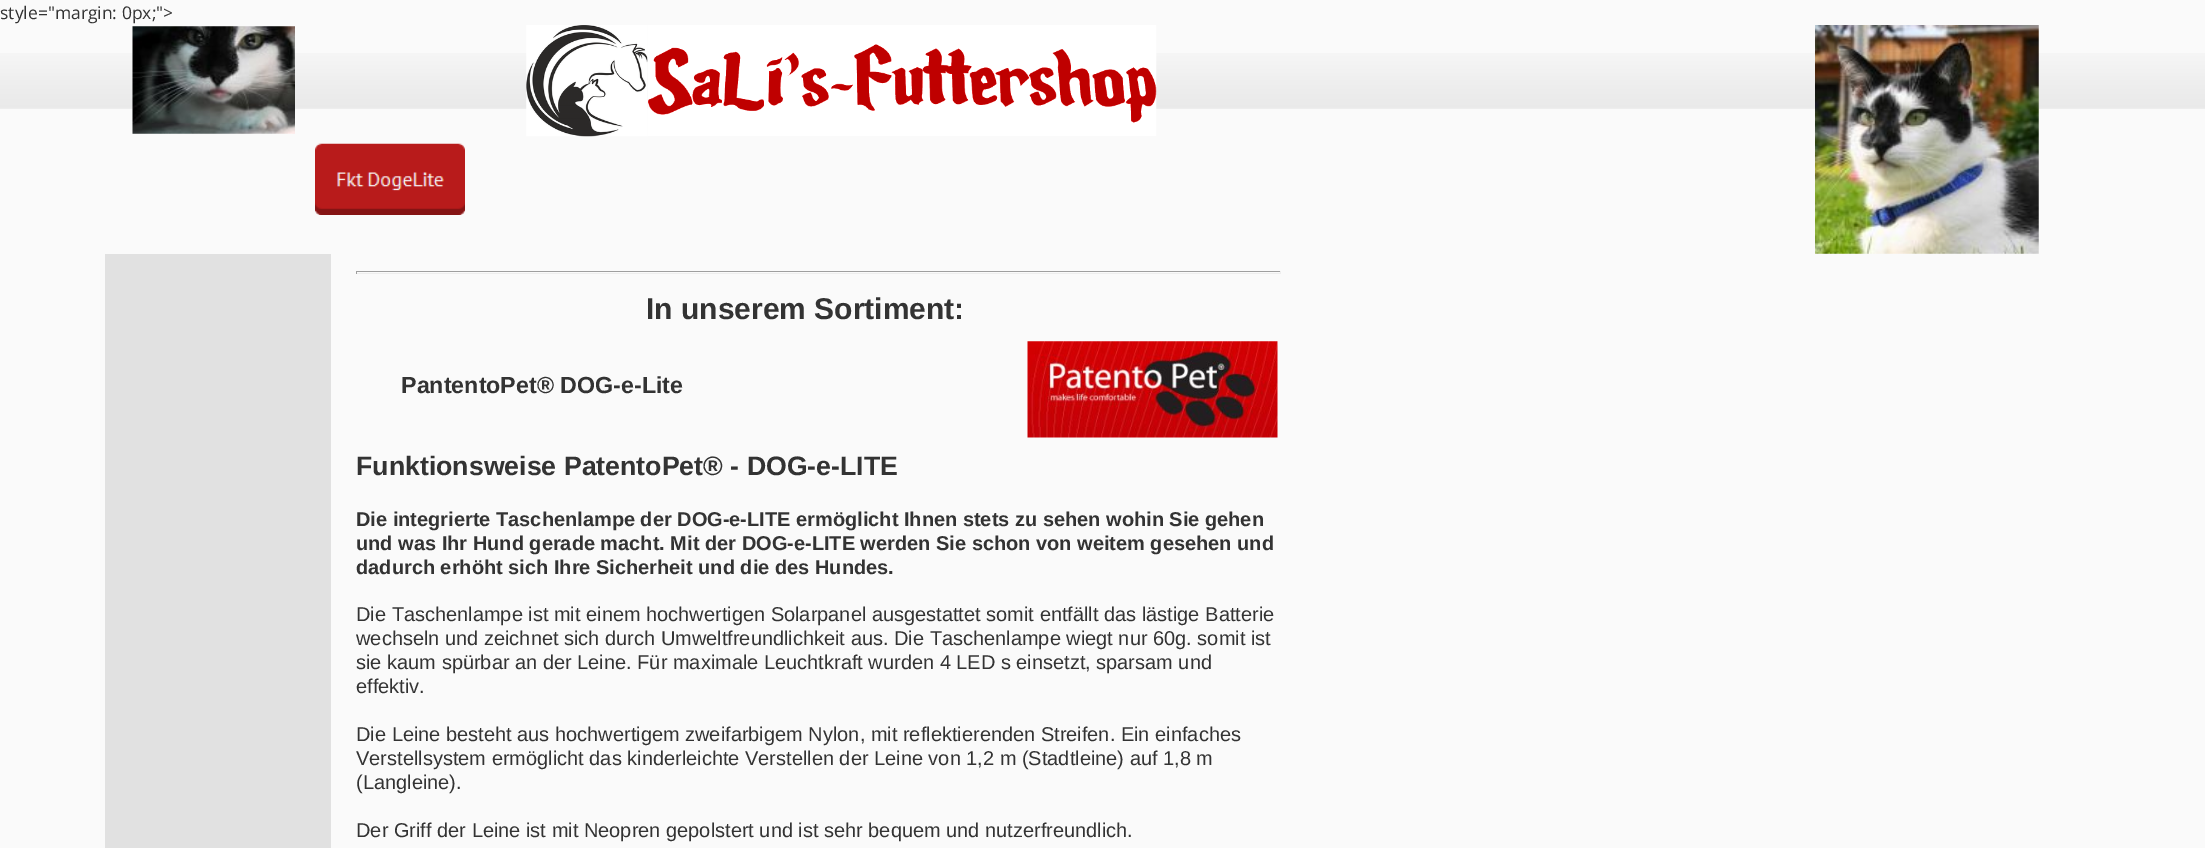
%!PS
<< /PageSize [2205 848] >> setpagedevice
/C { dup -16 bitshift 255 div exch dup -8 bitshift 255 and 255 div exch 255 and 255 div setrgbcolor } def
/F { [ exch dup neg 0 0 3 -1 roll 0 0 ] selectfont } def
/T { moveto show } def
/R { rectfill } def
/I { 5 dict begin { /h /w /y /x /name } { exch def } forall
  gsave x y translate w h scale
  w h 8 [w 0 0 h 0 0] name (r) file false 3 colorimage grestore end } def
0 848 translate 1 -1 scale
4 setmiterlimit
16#FAFAFA C
0 0 2205 848 R
(1.rgb) 0 53 2205 56 I
/OpenSans-Regular 17.5 F
16#333333 C
(style="margin: 0px;">) 0 19 T
(2.rgb) 132 26 163 108 I
(3.rgb) 526 25 122 112 I
(4.rgb) 647 25 510 111 I
(5.rgb) 315 143 150 72 I
(6.rgb) 1815 25 224 229 I
16#E1E1E1 C
105 254 226 594 R
16#9F9F9F C
356 271 925 1 R
16#EEEEEE C
1280 271 1 3 R
356 273 925 1 R
16#9F9F9F C
356 271 1 3 R
/LiberationSans-Bold 30 F
16#333333 C
(In unserem Sortiment:) 646 319 T
/LiberationSans-Bold 23.25 F
(PantentoPet® DOG-e-Lite) 401 393 T
(7.rgb) 1027 341 251 97 I
/LiberationSans-Bold 26.7 F
(Funktionsweise PatentoPet® - DOG-e-LITE) 356 475 T
/LiberationSans-Bold 20 F
(Die integrierte Taschenlampe der DOG-e-LITE ermöglicht Ihnen stets zu sehen wohin Sie gehen) 356 526 T
(und was Ihr Hund gerade macht. Mit der DOG-e-LITE werden Sie schon von weitem gesehen und) 356 550 T
(dadurch erhöht sich Ihre Sicherheit und die des Hundes.) 356 574 T
/LiberationSans-Regular 20 F
(Die Taschenlampe ist mit einem hochwertigen Solarpanel ausgestattet somit entfällt das lästige Batterie) 356 621 T
(wechseln und zeichnet sich durch Umweltfreundlichkeit aus. Die Taschenlampe wiegt nur 60g. somit ist) 356 645 T
(sie kaum spürbar an der Leine. Für maximale Leuchtkraft wurden 4 LED s einsetzt, sparsam und) 356 669 T
(effektiv.) 356 693 T
(Die Leine besteht aus hochwertigem zweifarbigem Nylon, mit reflektierenden Streifen. Ein einfaches) 356 741 T
(Verstellsystem ermöglicht das kinderleichte Verstellen der Leine von 1,2 m \(Stadtleine\) auf 1,8 m) 356 765 T
(\(Langleine\).) 356 789 T
(Der Griff der Leine ist mit Neopren gepolstert und ist sehr bequem und nutzerfreundlich.) 356 837 T
showpage
